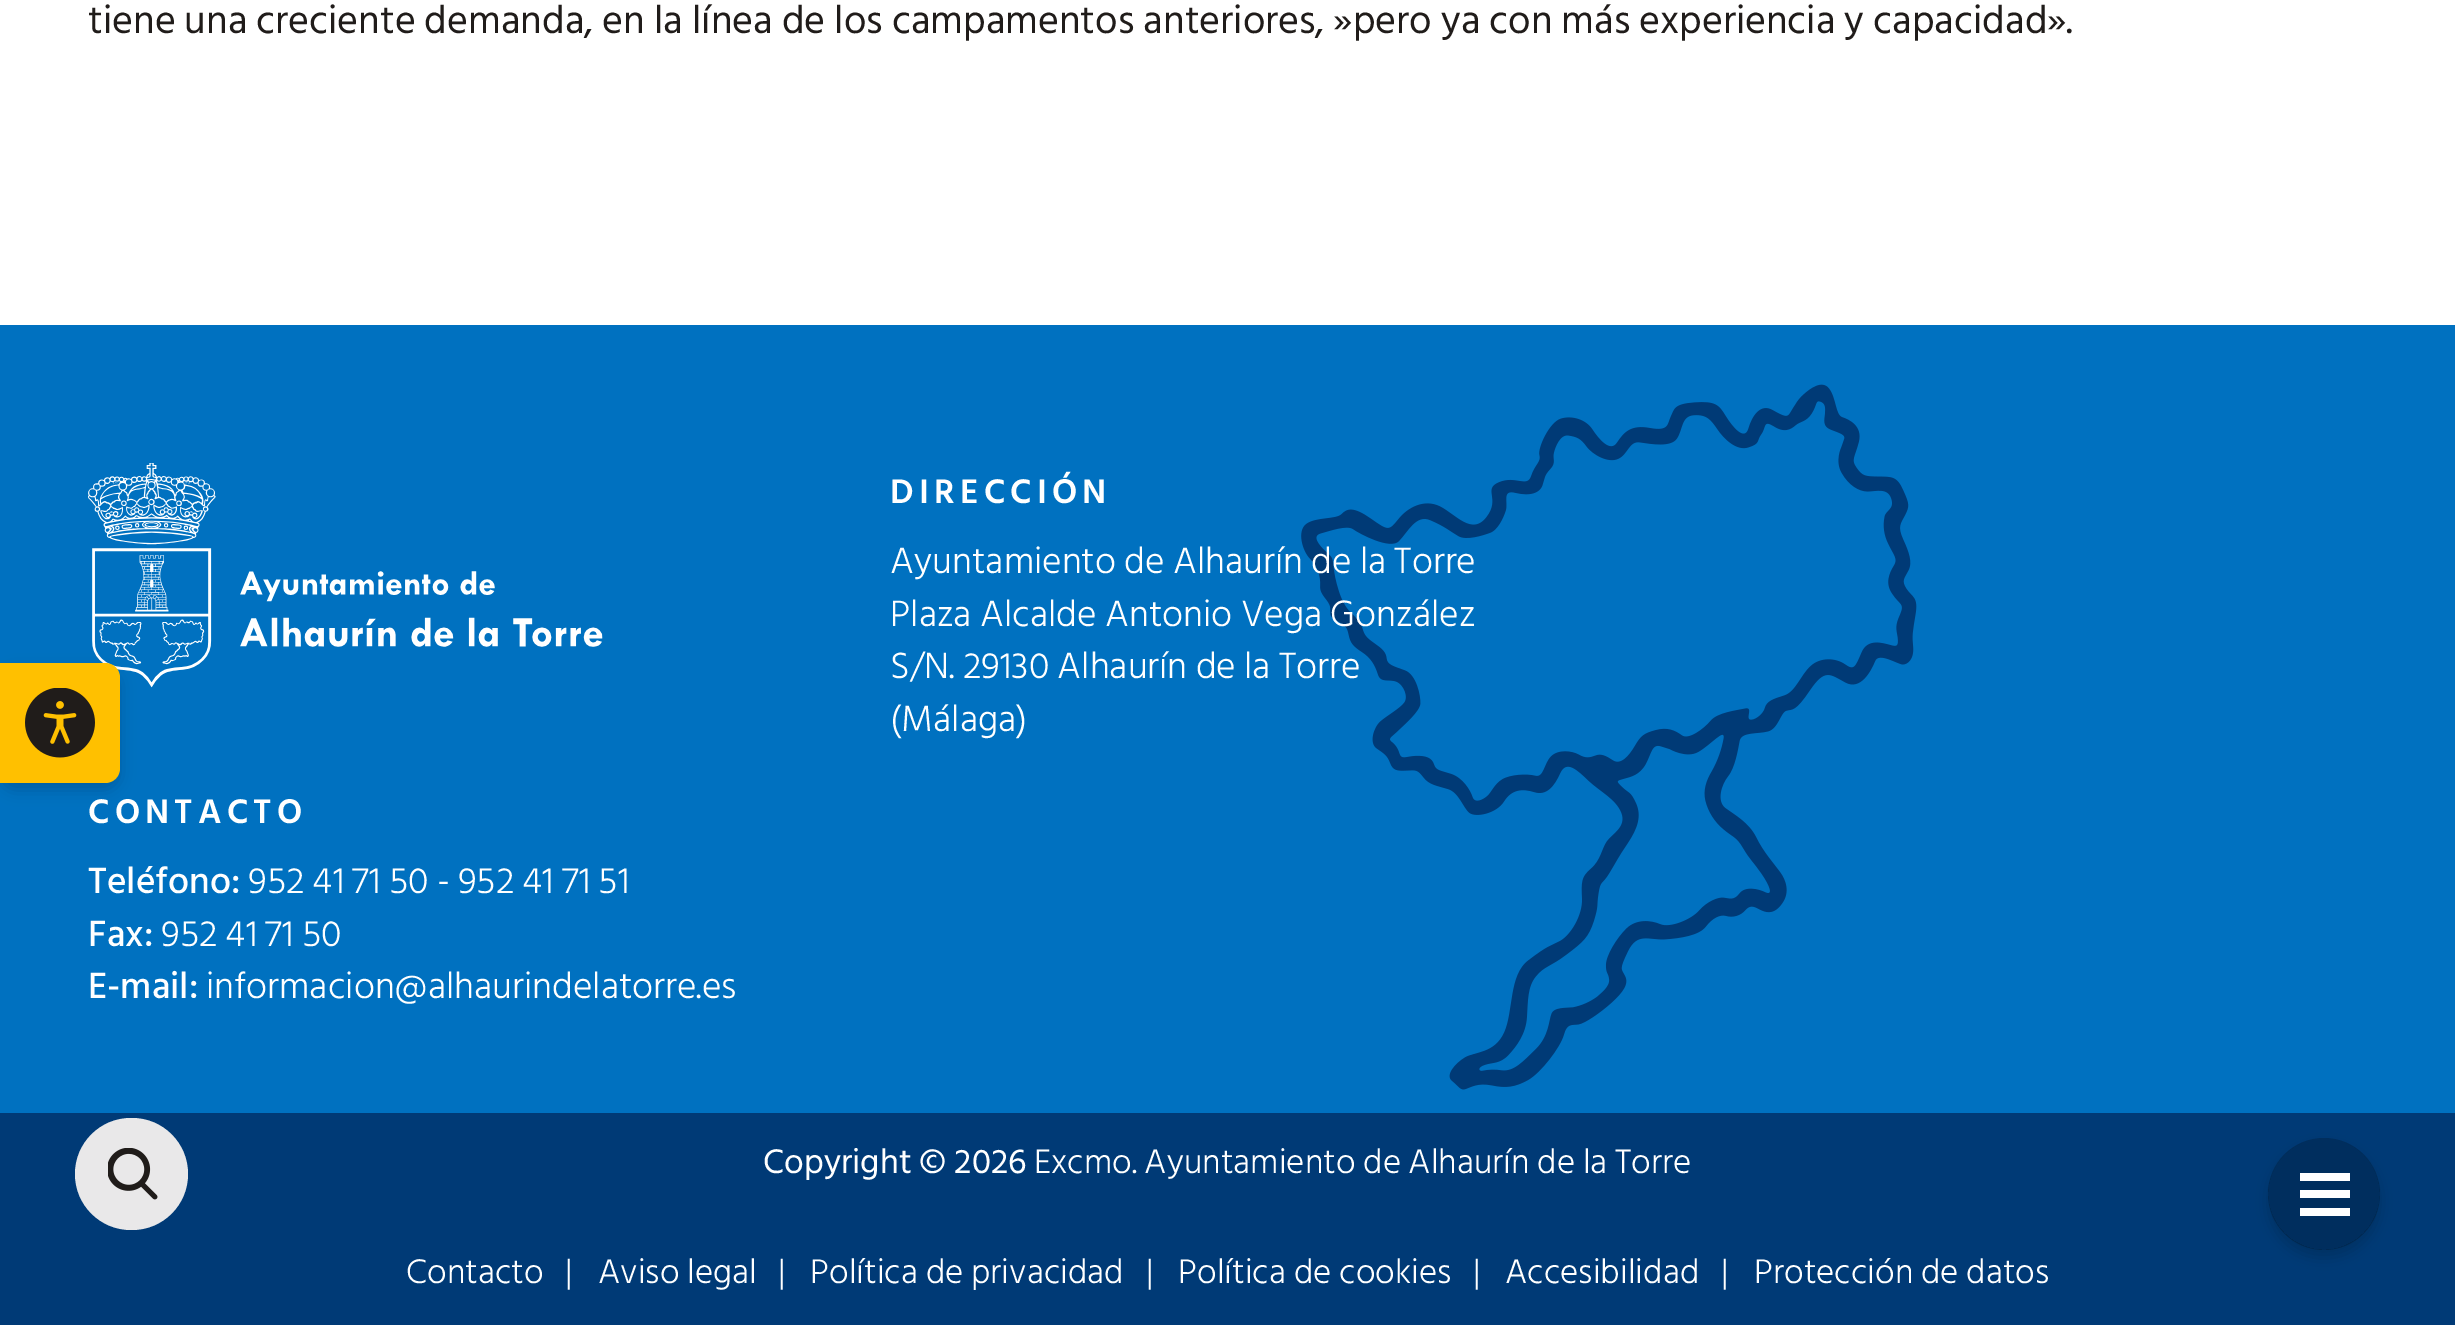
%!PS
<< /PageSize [2455 1325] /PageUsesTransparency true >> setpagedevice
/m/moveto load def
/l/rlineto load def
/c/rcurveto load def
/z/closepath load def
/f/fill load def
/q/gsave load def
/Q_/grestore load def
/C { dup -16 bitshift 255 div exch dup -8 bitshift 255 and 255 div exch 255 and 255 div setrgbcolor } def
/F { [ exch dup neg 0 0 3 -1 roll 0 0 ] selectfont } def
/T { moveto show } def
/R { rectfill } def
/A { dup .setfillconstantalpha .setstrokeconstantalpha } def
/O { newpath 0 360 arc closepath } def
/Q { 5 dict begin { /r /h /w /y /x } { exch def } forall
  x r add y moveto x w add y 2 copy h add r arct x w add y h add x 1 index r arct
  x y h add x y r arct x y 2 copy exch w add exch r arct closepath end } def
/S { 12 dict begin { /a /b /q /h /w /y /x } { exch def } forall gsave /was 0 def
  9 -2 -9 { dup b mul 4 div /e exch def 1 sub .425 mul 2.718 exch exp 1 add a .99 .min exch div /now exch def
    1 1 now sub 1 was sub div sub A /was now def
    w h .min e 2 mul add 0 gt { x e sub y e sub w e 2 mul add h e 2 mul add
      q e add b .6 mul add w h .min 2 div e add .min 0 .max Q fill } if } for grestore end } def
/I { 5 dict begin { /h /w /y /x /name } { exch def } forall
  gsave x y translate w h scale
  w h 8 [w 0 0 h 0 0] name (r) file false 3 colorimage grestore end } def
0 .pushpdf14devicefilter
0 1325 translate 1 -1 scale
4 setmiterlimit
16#FFFFFF C
0 0 2455 1325 R
/HindSiliguri-Regular 40 F
16#201C1A C
(tiene una creciente demanda, en la línea de los campamentos anteriores, »pero ya con más experiencia y capacidad».) 88 33 T
16#0071C0 C
0 325 2455 788 R
(3.rgb) 88 463 515 225 I
16#000000 C
0 670 120 120 15 7.5 .16 S
16#FFC000 C
0 663 m 105 0 l 8.5 0 15 6.5 15 15 c 0 90 l 0 8.5 -6.5 15 -15 15 c -105 0 l z f
(1.rgb) 25 688 70 70 I
(2.rgb) 1301 384 616 706 I
/HindSiliguri-SemiBold 35 F
16#FFFFFF C
890 503 m 5.25 0 (DIRECCIÓN) ashow
/HindSiliguri-Light 37.5 F
(Ayuntamiento de Alhaurín de la Torre) 890 573 T
(Plaza Alcalde Antonio Vega González) 890 626 T
(S/N. 29130 Alhaurín de la Torre) 890 678 T
(\(Málaga\)) 890 731 T
/HindSiliguri-SemiBold 35 F
88 823 m 5.25 0 (CONTACTO) ashow
/HindSiliguri-Medium 37.5 F
(Teléfono:) 88 893 T
/HindSiliguri-Light 37.5 F
(952 41 71 50 - 952 41 71 51) 248 893 T
/HindSiliguri-Medium 37.5 F
(Fax:) 88 946 T
/HindSiliguri-Light 37.5 F
(952 41 71 50) 161 946 T
/HindSiliguri-Medium 37.5 F
(E-mail:) 88 998 T
/HindSiliguri-Light 37.5 F
(informacion@alhaurindelatorre.es) 206 998 T
16#003A76 C
0 1113 2455 212 R
/HindSiliguri-Regular 35 F
16#FFFFFF C
(Copyright © 2026) 763 1173 T
/HindSiliguri-Light 35 F
(Excmo. Ayuntamiento de Alhaurín de la Torre) 1034 1173 T
(Contacto) 406 1283 T
(|) 565 1283 T
(Aviso legal) 598 1283 T
(|) 778 1283 T
(Política de privacidad) 810 1283 T
(|) 1146 1283 T
(Política de cookies) 1178 1283 T
(|) 1473 1283 T
(Accesibilidad) 1505 1283 T
(|) 1721 1283 T
(Protección de datos) 1754 1283 T
16#E9E8E9 C
75 1118 113 112 56 Q f
(4.rgb) 108 1148 50 52 I
q
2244 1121 m 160 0 l 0 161 l -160 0 l z 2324 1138 m 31 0 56 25 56 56 c 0 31 -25 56 -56 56 c -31 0 -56 -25 -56 -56 c 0 -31 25 -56 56 -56 c z eoclip newpath
16#000000 C
2268 1145 112 113 56 7.5 .16 S
Q_
0.2 A
16#000000 C
2324 1194 56 O f
1 A
16#FFFFFF C
2300 1173 50 8 R
2300 1190 50 8 R
2300 1208 50 8 R
.poppdf14devicefilter showpage
